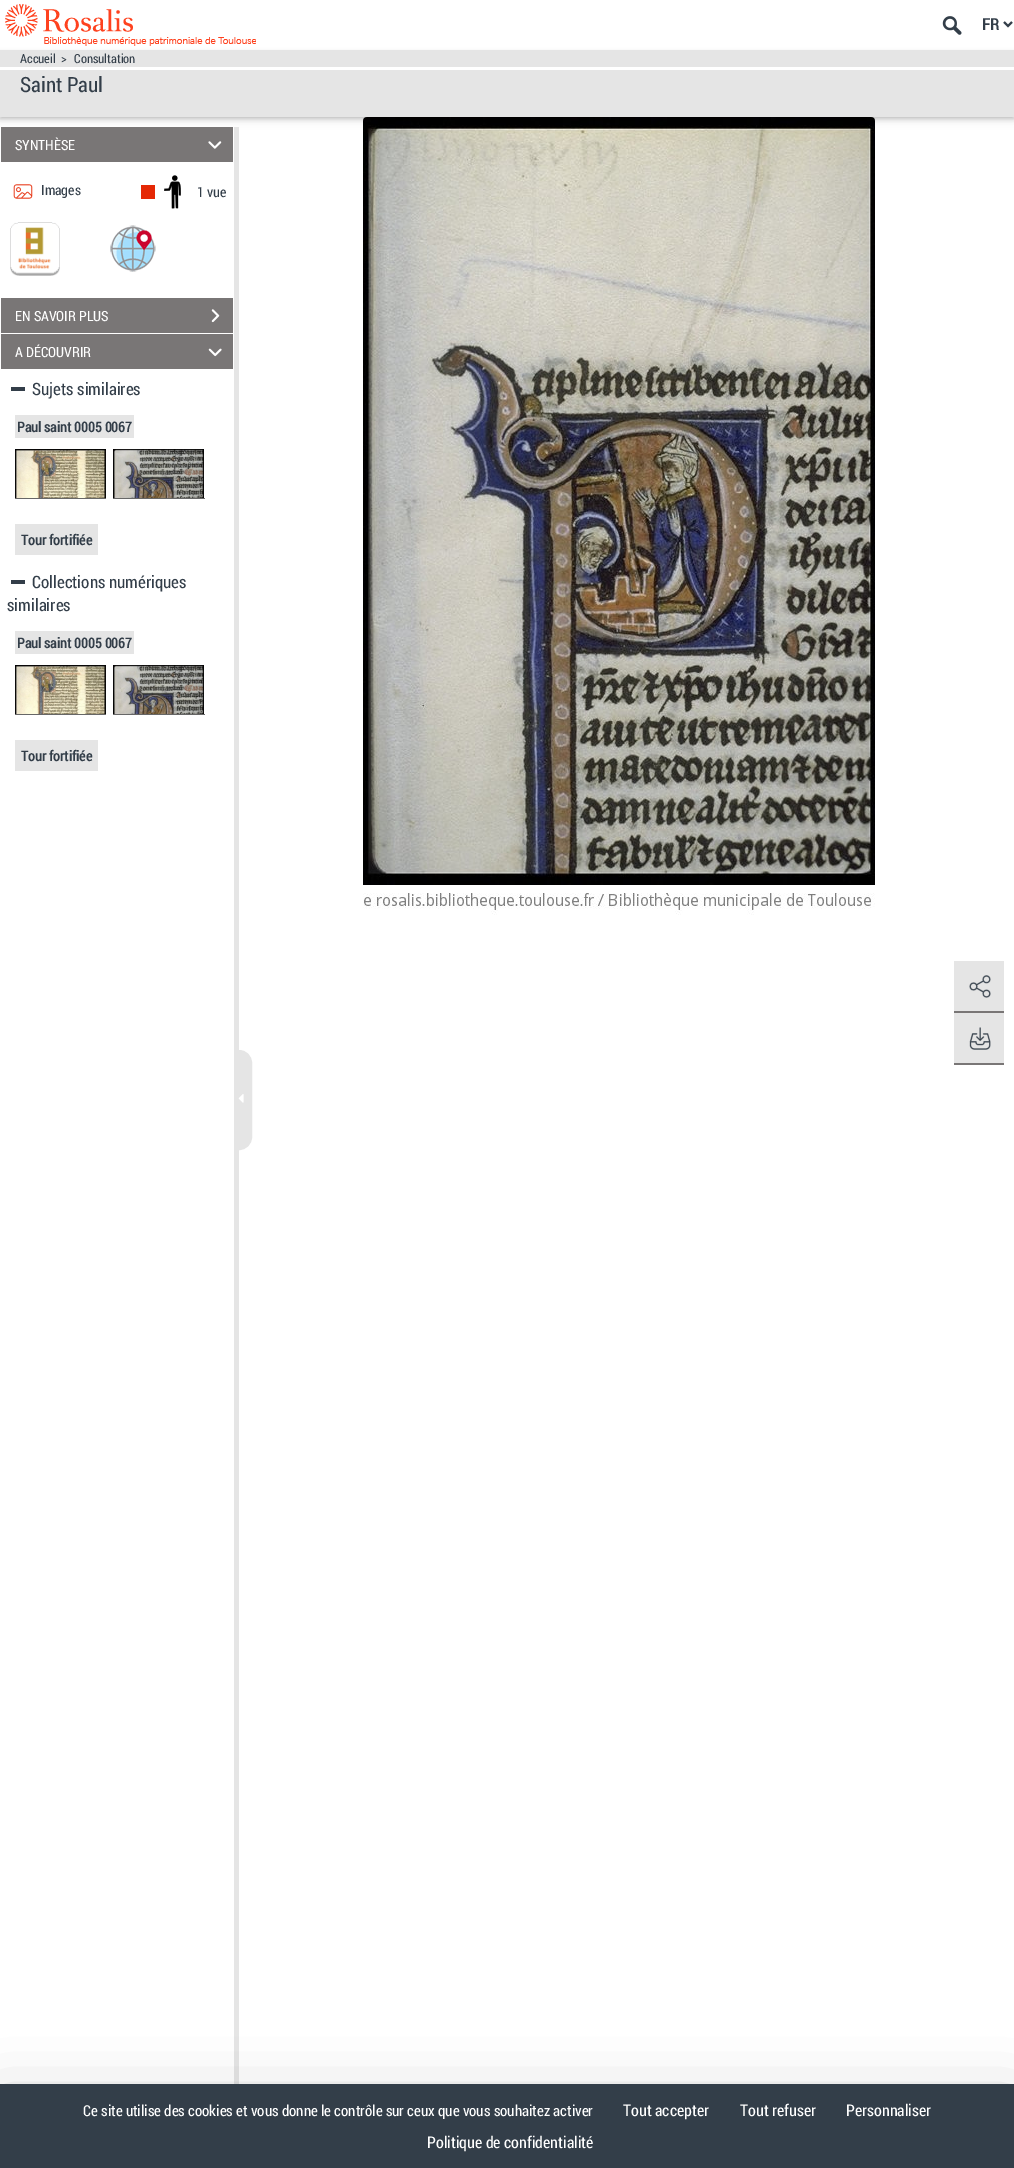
%!PS
<< /PageSize [1014 2168] /PageUsesTransparency true >> setpagedevice
/m/moveto load def
/l/rlineto load def
/c/rcurveto load def
/z/closepath load def
/f/fill load def
/s/stroke load def
/q/gsave load def
/Q_/grestore load def
/w/setlinewidth load def
/C { dup -16 bitshift 255 div exch dup -8 bitshift 255 and 255 div exch 255 and 255 div setrgbcolor } def
/F { [ exch dup neg 0 0 3 -1 roll 0 0 ] selectfont } def
/T { moveto show } def
/R { rectfill } def
/A { dup .setfillconstantalpha .setstrokeconstantalpha } def
/Q { 5 dict begin { /r /h /w /y /x } { exch def } forall
  x r add y moveto x w add y 2 copy h add r arct x w add y h add x 1 index r arct
  x y h add x y r arct x y 2 copy exch w add exch r arct closepath end } def
/S { 12 dict begin { /a /b /q /h /w /y /x } { exch def } forall gsave /was 0 def
  9 -2 -9 { dup b mul 4 div /e exch def 1 sub .425 mul 2.718 exch exp 1 add a .99 .min exch div /now exch def
    1 1 now sub 1 was sub div sub A /was now def
    w h .min e 2 mul add 0 gt { x e sub y e sub w e 2 mul add h e 2 mul add
      q e add b .6 mul add w h .min 2 div e add .min 0 .max Q fill } if } for grestore end } def
/I { 5 dict begin { /h /w /y /x /name } { exch def } forall
  gsave x y translate w h scale
  w h 8 [w 0 0 h 0 0] name (r) file false 3 colorimage grestore end } def
0 .pushpdf14devicefilter
0 2168 translate 1 -1 scale
4 setmiterlimit
16#FFFFFF C
0 0 1014 2168 R
(13.rgb) 363 117 512 798 I
q
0 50 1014 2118 rectclip
16#000000 C
0 52 1014 67 0 5 .12 S
Q_
16#000000 C
0 52 1014 67 0 2 .16 S
(1.rgb) 5 4 251 42 I
(2.rgb) 942 16 20 19 I
16#333E49 C
2 w
1004 22 m 4 4 l 4 -4 l s
/RobotoCondensed-Bold 16 F
(FR) 982 30 T
16#E5E5E5 C
0 50 1014 67 R
16#FFFFFF C
0 67 1014 3 R
/RobotoCondensed-Regular 12.5 F
16#333E49 C
(Accueil) 20 63 T
(>) 61 63 T
(Consultation) 74 63 T
/RobotoCondensed-Regular 21 F
(Saint Paul) 20 92 T
16#E5E5E5 C
234 127 5 1957 R
16#797676 C
1 127 232 35 R
/RobotoCondensed-Regular 14 F
16#FFFFFF C
(SYNTHÈSE) 15 150 T
(3.rgb) 208 141 14 8 I
(4.rgb) 13 184 20 15 I
16#333E49 C
(Images) 41 195 T
16#E52805 C
141 185 14 14 R
(5.rgb) 164 175 17 34 I
16#333E49 C
(1 vue) 197 197 T
(6.rgb) 10 222 50 54 I
(7.rgb) 110 225 46 47 I
16#797676 C
1 298 232 35 R
16#FFFFFF C
(EN SAVOIR PLUS) 15 321 T
(8.rgb) 211 309 9 14 I
16#797676 C
1 334 232 35 R
16#FFFFFF C
(A DÉCOUVRIR) 15 357 T
(9.rgb) 208 348 14 9 I
/RobotoCondensed-Regular 17 F
16#333E49 C
(Sujets similaires) 32 395 T
11 387 14 4 R
16#E5E5E5 C
15 415 119 23 R
/RobotoCondensed-Bold 14 F
16#333E49 C
(Paul saint 0005 0067) 17 432 T
(10.rgb) 15 449 91 49 I
16#676767 C
15 498 91 1 R
(11.rgb) 113 449 91 49 I
113 498 92 1 R
16#E5E5E5 C
15 524 83 31 R
16#333E49 C
(Tour fortifiée) 21 545 T
/RobotoCondensed-Regular 17 F
(Collections numériques) 32 588 T
11 580 14 4 R
(similaires) 7 611 T
16#E5E5E5 C
15 631 119 23 R
/RobotoCondensed-Bold 14 F
16#333E49 C
(Paul saint 0005 0067) 17 648 T
(10.rgb) 15 665 91 49 I
16#676767 C
15 714 91 1 R
(11.rgb) 113 665 91 49 I
113 714 92 1 R
16#E5E5E5 C
15 740 83 31 R
16#333E49 C
(Tour fortifiée) 21 761 T
16#E5E5E5 C
239.5 1050.5 m -.5 0 l 7 0 12.5 5.5 12.5 12.5 c 0 74 l 0 7 -5.5 12.5 -12.5 12.5 c .5 0 l z q f Q_
1 w
s
(12.rgb) 238 1094 6 9 I
954 961 50 50 R
(14.rgb) 969 975 22 23 I
16#797676 C
954 1011 50 2 R
16#E5E5E5 C
954 1013 50 50 R
(15.rgb) 969 1027 22 23 I
16#797676 C
954 1063 50 2 R
16#000000 C
0 2104 1014 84 0 30 .25 S
16#333E49 C
0 2084 1014 84 R
/RobotoCondensed-Regular 15 F
16#FFFFFF C
(Ce site utilise des cookies et vous donne le contrôle sur ceux que vous souhaitez activer) 83 2116 T
/RobotoCondensed-Regular 16 F
(Tout accepter) 623 2116 T
(Tout refuser) 740 2116 T
(Personnaliser) 846 2116 T
(Politique de confidentialité) 427 2148 T
.poppdf14devicefilter showpage
